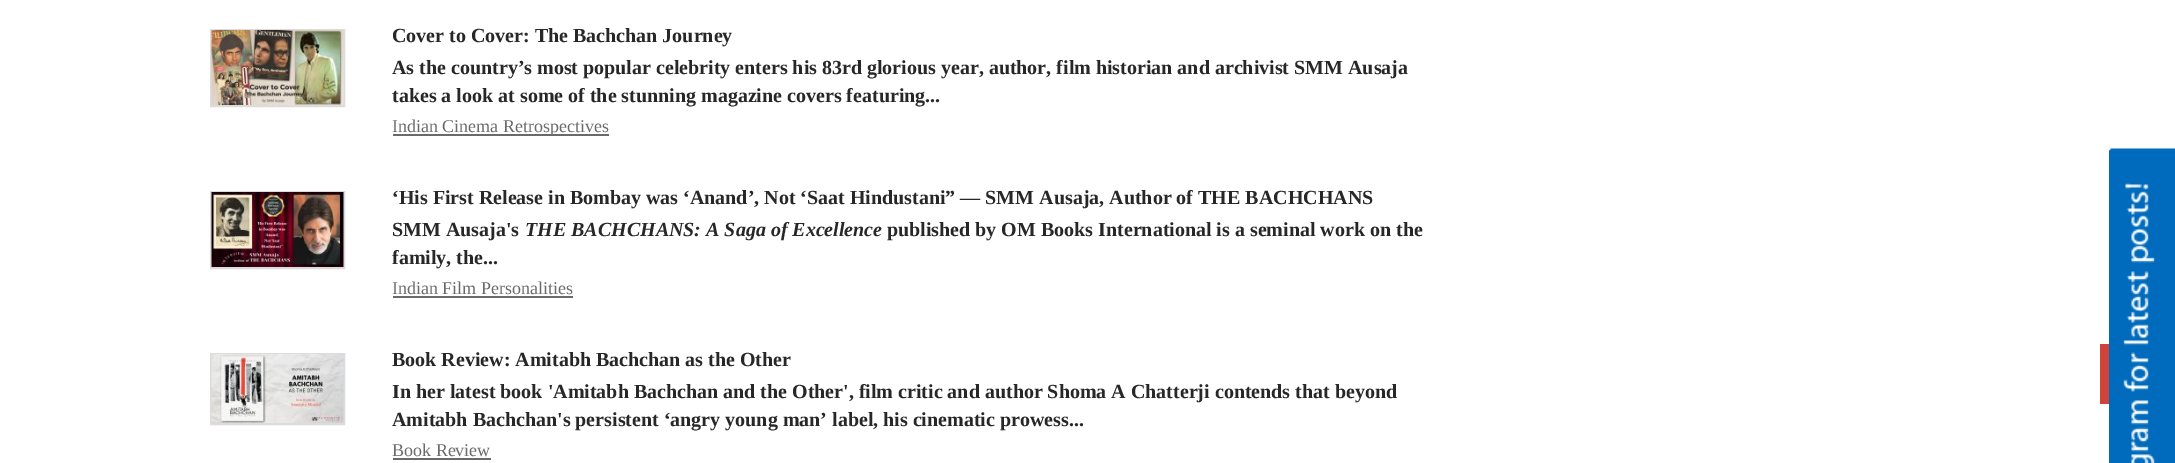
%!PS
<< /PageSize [2175 463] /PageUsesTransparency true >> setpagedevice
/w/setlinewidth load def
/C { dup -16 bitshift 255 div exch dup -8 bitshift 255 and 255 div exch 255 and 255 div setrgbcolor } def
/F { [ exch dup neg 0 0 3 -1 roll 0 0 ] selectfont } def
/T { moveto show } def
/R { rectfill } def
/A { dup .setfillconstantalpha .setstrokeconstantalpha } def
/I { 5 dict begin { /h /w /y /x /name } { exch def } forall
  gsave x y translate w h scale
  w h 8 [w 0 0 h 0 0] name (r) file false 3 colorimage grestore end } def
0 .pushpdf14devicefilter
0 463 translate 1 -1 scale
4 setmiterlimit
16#FFFFFF C
0 0 2175 463 R
16#DCDCDC C
2 w
211 30 133 76 rectstroke
(1.rgb) 211 30 133 75 I
/LiberationSerif-Bold 20 F
16#272727 C
(Cover to Cover: The Bachchan Journey) 392 42 T
(As the country’s most popular celebrity enters his 83rd glorious year, author, film historian and archivist SMM Ausaja) 392 74 T
(takes a look at some of the stunning magazine covers featuring...) 392 102 T
16#6A6A6A C
393 134 216 2 R
/LiberationSerif-Regular 18 F
(Indian Cinema Retrospectives) 392 132 T
16#DCDCDC C
211 192 133 76 rectstroke
(2.rgb) 211 192 133 75 I
/LiberationSerif-Bold 20 F
16#272727 C
(‘His First Release in Bombay was ‘Anand’, Not ‘Saat Hindustani” — SMM Ausaja, Author of THE BACHCHANS) 392 204 T
(SMM Ausaja's) 392 236 T
/LiberationSerif-BoldItalic 20 F
(THE BACHCHANS: A Saga of Excellence) 525 236 T
/LiberationSerif-Bold 20 F
(published by OM Books International is a seminal work on the) 887 236 T
(family, the...) 392 264 T
/LiberationSerif-Regular 18 F
16#6A6A6A C
(Indian Film Personalities) 392 294 T
393 296 180 2 R
16#DCDCDC C
211 354 133 70 rectstroke
(3.rgb) 211 354 133 69 I
/LiberationSerif-Bold 20 F
16#272727 C
(Book Review: Amitabh Bachchan as the Other) 392 366 T
(In her latest book 'Amitabh Bachchan and the Other', film critic and author Shoma A Chatterji contends that beyond) 392 398 T
(Amitabh Bachchan's persistent ‘angry young man’ label, his cinematic prowess...) 392 426 T
/LiberationSerif-Regular 18 F
16#6A6A6A C
(Book Review) 392 456 T
393 458 98 2 R
(4.rgb) 2109 148 66 315 I
0.8 A
16#C2150A C
2100 344 9 60 R
.poppdf14devicefilter showpage
